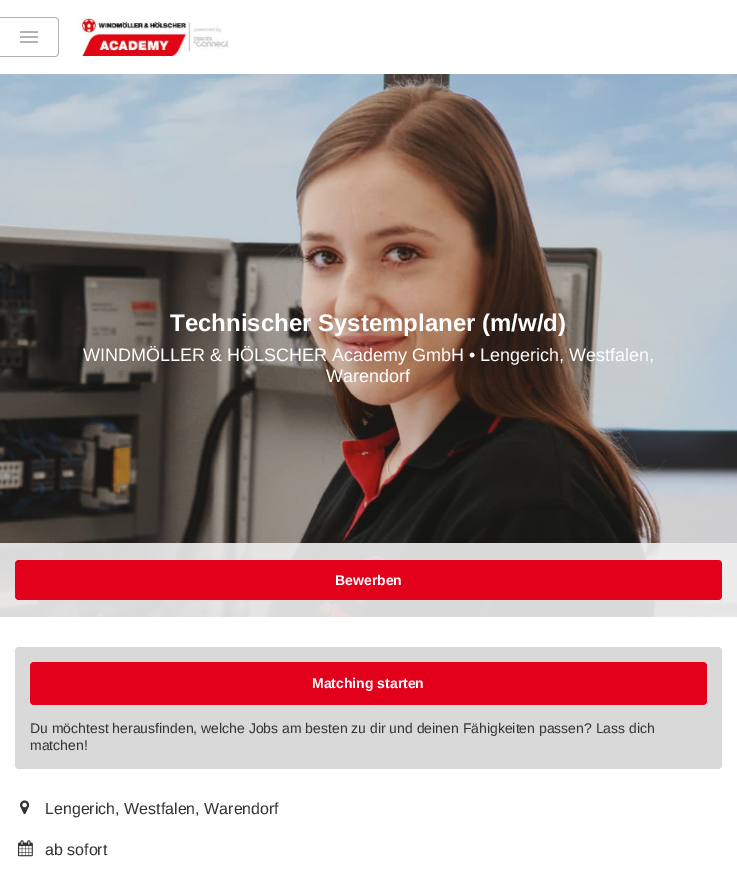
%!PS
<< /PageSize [737 882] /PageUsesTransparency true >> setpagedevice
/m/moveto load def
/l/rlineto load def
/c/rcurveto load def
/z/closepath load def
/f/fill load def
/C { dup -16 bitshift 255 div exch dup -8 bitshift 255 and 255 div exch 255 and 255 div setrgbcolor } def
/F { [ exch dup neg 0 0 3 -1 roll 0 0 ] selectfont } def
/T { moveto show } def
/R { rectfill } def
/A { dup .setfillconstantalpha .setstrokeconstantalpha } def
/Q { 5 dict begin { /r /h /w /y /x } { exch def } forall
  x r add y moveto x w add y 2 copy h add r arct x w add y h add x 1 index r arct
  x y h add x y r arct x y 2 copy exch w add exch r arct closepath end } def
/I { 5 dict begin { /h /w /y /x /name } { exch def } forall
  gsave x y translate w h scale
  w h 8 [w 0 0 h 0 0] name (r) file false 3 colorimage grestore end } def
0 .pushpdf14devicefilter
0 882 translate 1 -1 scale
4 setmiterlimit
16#FFFFFF C
0 0 737 882 R
16#B3B3B3 C
0 17 m 55 0 l 2 0 4 2 4 4 c 0 32 l 0 2 -2 4 -4 4 c -55 0 l z 0 18 m 55 0 l 2 0 3 1 3 3 c 0 32 l 0 2 -1 3 -3 3 c -55 0 l z eofill
20 31 18 2 1 Q f
20 36 18 2 1 Q f
20 41 18 2 1 Q f
(1.rgb) 77 18 152 38 I
(2.rgb) 0 74 737 543 I
/LiberationSans-Bold 24 F
16#FFFFFF C
(Technischer Systemplaner \(m/w/d\)) 170 331 T
/LiberationSans-Regular 18 F
(WINDMÖLLER & HÖLSCHER Academy GmbH • Lengerich, Westfalen,) 83 361 T
(Warendorf) 326 382 T
0.9 A
16#EFEFEF C
0 543 737 74 R
1 A
16#E2001B C
15 560 707 40 4 Q f
/LiberationSans-Bold 14 F
16#FFFFFF C
(Bewerben) 335 585 T
16#D9D9D9 C
15 647 707 122 4 Q f
16#E2001B C
30 662 677 43 4 Q f
16#FFFFFF C
(Matching starten) 312 688 T
/LiberationSans-Regular 14 F
16#333333 C
(Du möchtest herausfinden, welche Jobs am besten zu dir und deinen Fähigkeiten passen? Lass dich) 30 733 T
(matchen!) 30 750 T
(3.rgb) 20 800 10 15 I
/LiberationSans-Regular 16 F
(Lengerich, Westfalen, Warendorf) 45 814 T
(4.rgb) 18 840 15 17 I
(ab sofort) 45 855 T
.poppdf14devicefilter showpage
